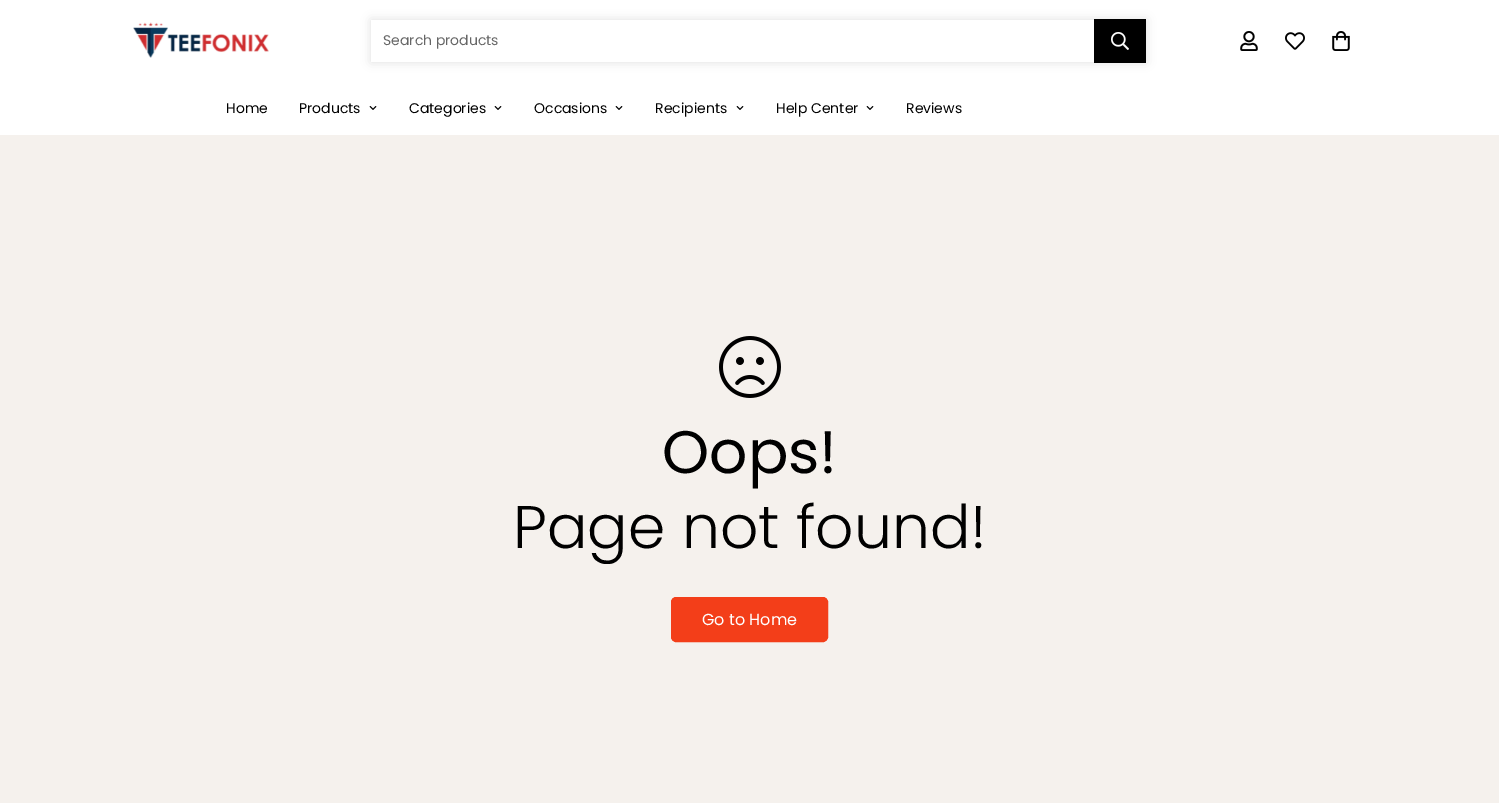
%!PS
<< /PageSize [1499 803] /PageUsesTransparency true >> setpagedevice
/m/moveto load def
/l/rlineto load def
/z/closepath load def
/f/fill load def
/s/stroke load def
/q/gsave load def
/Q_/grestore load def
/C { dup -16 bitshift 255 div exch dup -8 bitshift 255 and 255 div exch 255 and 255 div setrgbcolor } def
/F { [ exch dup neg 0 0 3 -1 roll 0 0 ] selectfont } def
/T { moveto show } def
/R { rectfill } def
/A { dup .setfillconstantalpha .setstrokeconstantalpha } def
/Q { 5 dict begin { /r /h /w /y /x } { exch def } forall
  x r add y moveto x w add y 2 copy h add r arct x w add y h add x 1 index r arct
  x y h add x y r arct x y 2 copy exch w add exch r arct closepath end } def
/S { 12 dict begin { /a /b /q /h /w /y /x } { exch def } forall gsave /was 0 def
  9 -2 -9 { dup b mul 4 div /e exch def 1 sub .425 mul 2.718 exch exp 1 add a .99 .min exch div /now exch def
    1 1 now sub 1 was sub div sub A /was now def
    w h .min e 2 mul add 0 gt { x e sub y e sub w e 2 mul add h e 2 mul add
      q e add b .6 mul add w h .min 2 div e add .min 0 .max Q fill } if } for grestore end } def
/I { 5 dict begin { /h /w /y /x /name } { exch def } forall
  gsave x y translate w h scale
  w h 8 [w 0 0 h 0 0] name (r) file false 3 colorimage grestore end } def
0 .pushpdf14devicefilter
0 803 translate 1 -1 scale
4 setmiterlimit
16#FFFFFF C
0 0 1499 803 R
(1.rgb) 133 22 136 36 I
q
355 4 m 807 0 l 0 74 l -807 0 l z 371 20 m 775 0 l 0 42 l -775 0 l z eoclip newpath
16#000000 C
371 20 775 42 0 5 .12 S
Q_
/Poppins-Regular 14 F
16#666666 C
(Search products) 383 45 T
16#000000 C
1094 19 52 44 R
(2.rgb) 1111 32 18 18 I
(3.rgb) 1240 31 18 20 I
(4.rgb) 1285 32 20 18 I
(5.rgb) 1332 31 18 20 I
(Home) 226 113 T
(Products) 299 113 T
(6.rgb) 369 106 8 4 I
(Categories) 409 113 T
(6.rgb) 494 106 8 4 I
(Occasions) 534 113 T
(6.rgb) 615 106 8 4 I
(Recipients) 655 113 T
(6.rgb) 736 106 8 4 I
(Help Center) 776 113 T
(6.rgb) 866 106 8 4 I
(Reviews) 906 113 T
16#F5F1ED C
0 135 1499 668 R
(7.rgb) 719 336 62 62 I
/Poppins-Regular 60 F
16#000000 C
(Oops!) 662 473 T
/Poppins-Light 60 F
(Page not found!) 513 548 T
16#F33E19 C
671.5 597.5 156 44 4.5 Q q f Q_
s
/Poppins-Regular 16 F
16#FFFFFF C
(Go to Home) 702 625 T
.poppdf14devicefilter showpage
